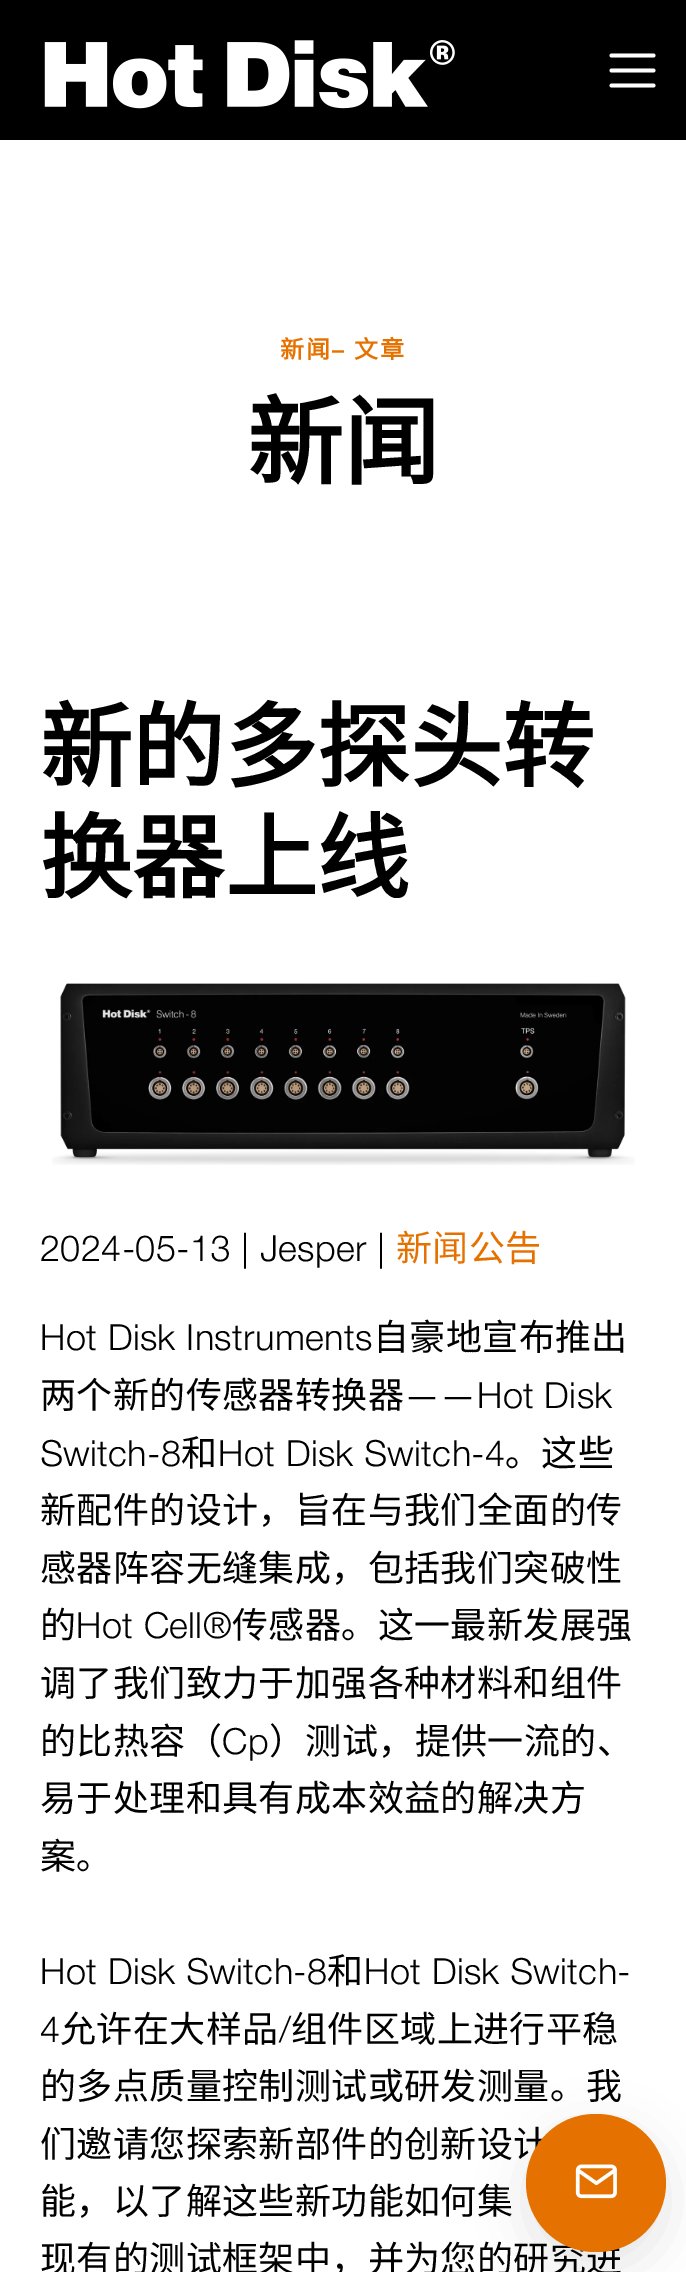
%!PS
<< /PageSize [686 2272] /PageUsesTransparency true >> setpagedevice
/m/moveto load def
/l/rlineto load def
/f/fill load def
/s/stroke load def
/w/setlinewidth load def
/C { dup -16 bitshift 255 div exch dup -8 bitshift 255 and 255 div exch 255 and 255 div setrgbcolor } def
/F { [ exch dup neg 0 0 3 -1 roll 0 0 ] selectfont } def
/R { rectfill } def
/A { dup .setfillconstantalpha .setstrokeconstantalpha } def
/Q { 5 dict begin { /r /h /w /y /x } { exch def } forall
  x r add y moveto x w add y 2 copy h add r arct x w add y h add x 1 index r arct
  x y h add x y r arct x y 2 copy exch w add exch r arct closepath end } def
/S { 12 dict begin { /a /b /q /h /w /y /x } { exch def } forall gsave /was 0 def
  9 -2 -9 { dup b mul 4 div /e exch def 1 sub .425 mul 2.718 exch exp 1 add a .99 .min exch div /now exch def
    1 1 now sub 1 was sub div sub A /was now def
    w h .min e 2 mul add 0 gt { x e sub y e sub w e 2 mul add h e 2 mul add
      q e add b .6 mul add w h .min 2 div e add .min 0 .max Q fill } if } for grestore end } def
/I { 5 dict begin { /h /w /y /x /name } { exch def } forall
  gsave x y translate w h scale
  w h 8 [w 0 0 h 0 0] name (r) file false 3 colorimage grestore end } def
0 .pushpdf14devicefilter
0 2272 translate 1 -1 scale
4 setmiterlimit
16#FFFFFF C
0 0 686 2272 R
16#000000 C
0 0 686 140 R
(1.rgb) 44 40 411 69 I
16#FFFFFF C
3.8 w
1 setlinecap
611.5 55.5 m 42 0 l 611.5 70.5 m 42 0 l 611.5 85.5 m 42 0 l s
/NotoSansCJKSC-Bold 24 F
16#E57200 C
280 358 m 2 0 (新闻) ashow
/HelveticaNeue-Regular 24 F
332 358 m 2 0 (–) ashow
/NotoSansCJKSC-Bold 24 F
354 358 m 2 0 (文章) ashow
/NotoSansCJKSC-Bold 96 F
16#000000 C
247 477 m .4 0 (新闻) ashow
/NotoSansCJKSC-Bold 92 F
40 780 m .4 0 (新的多探头转) ashow
40 891 m .4 0 (换器上线) ashow
(2.rgb) 52 983 583 182 I
/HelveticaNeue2-Regular 36 F
40 1261 m .4 0 (2024-05-13 | Jesper |) ashow
/NotoSansCJKSC-Regular 36 F
16#E57200 C
396 1261 m .4 0 (新闻公告) ashow
/HelveticaNeue2-Regular 36 F
16#000000 C
40 1350 m .4 0 (Hot Disk Instruments) ashow
/NotoSansCJKSC-Regular 36 F
373 1350 m .4 0 (自豪地宣布推出) ashow
40 1408 m .4 0 (两个新的传感器转换器) ashow
/HelveticaNeue2-Regular 36 F
404 1408 m .4 0 (——Hot Disk) ashow
40 1466 m .4 0 (Switch-8) ashow
/NotoSansCJKSC-Regular 36 F
181 1466 m .4 0 (和) ashow
/HelveticaNeue2-Regular 36 F
218 1466 m .4 0 (Hot Disk Switch-4) ashow
/NotoSansCJKSC-Regular 36 F
505 1466 m .4 0 (。这些) ashow
40 1523 m .4 0 (新配件的设计，旨在与我们全面的传) ashow
40 1581 m .4 0 (感器阵容无缝集成，包括我们突破性) ashow
40 1638 m .4 0 (的) ashow
/HelveticaNeue2-Regular 36 F
76 1638 m .4 0 (Hot Cell®) ashow
/NotoSansCJKSC-Regular 36 F
232 1638 m .4 0 (传感器。这一最新发展强) ashow
40 1696 m .4 0 (调了我们致力于加强各种材料和组件) ashow
40 1754 m .4 0 (的比热容（) ashow
/HelveticaNeue2-Regular 36 F
222 1754 m .4 0 (Cp) ashow
/NotoSansCJKSC-Regular 36 F
269 1754 m .4 0 (）测试，提供一流的、) ashow
40 1811 m .4 0 (易于处理和具有成本效益的解决方) ashow
40 1869 m .4 0 (案。) ashow
/HelveticaNeue2-Regular 36 F
40 1984 m .4 0 (Hot Disk Switch-8) ashow
/NotoSansCJKSC-Regular 36 F
327 1984 m .4 0 (和) ashow
/HelveticaNeue2-Regular 36 F
364 1984 m .4 0 (Hot Disk Switch-) ashow
40 2042 m .4 0 (4) ashow
/NotoSansCJKSC-Regular 36 F
60 2042 m .4 0 (允许在大样品) ashow
/HelveticaNeue2-Regular 36 F
279 2042 m .4 0 (/) ashow
/NotoSansCJKSC-Regular 36 F
291 2042 m .4 0 (组件区域上进行平稳) ashow
40 2099 m .4 0 (的多点质量控制测试或研发测量。我) ashow
40 2157 m .4 0 (们邀请您探索新部件的创新设计) ashow
40 2214 m .4 0 (能，以了解这些新功能如何集) ashow
40 2272 m .4 0 (现有的测试框架中，并为您的研究进) ashow
526 2130 140 138 69 24 .1 S
16#E57200 C
526 2114 140 138 69 Q f
(3.rgb) 575 2164 42 35 I
.poppdf14devicefilter showpage
